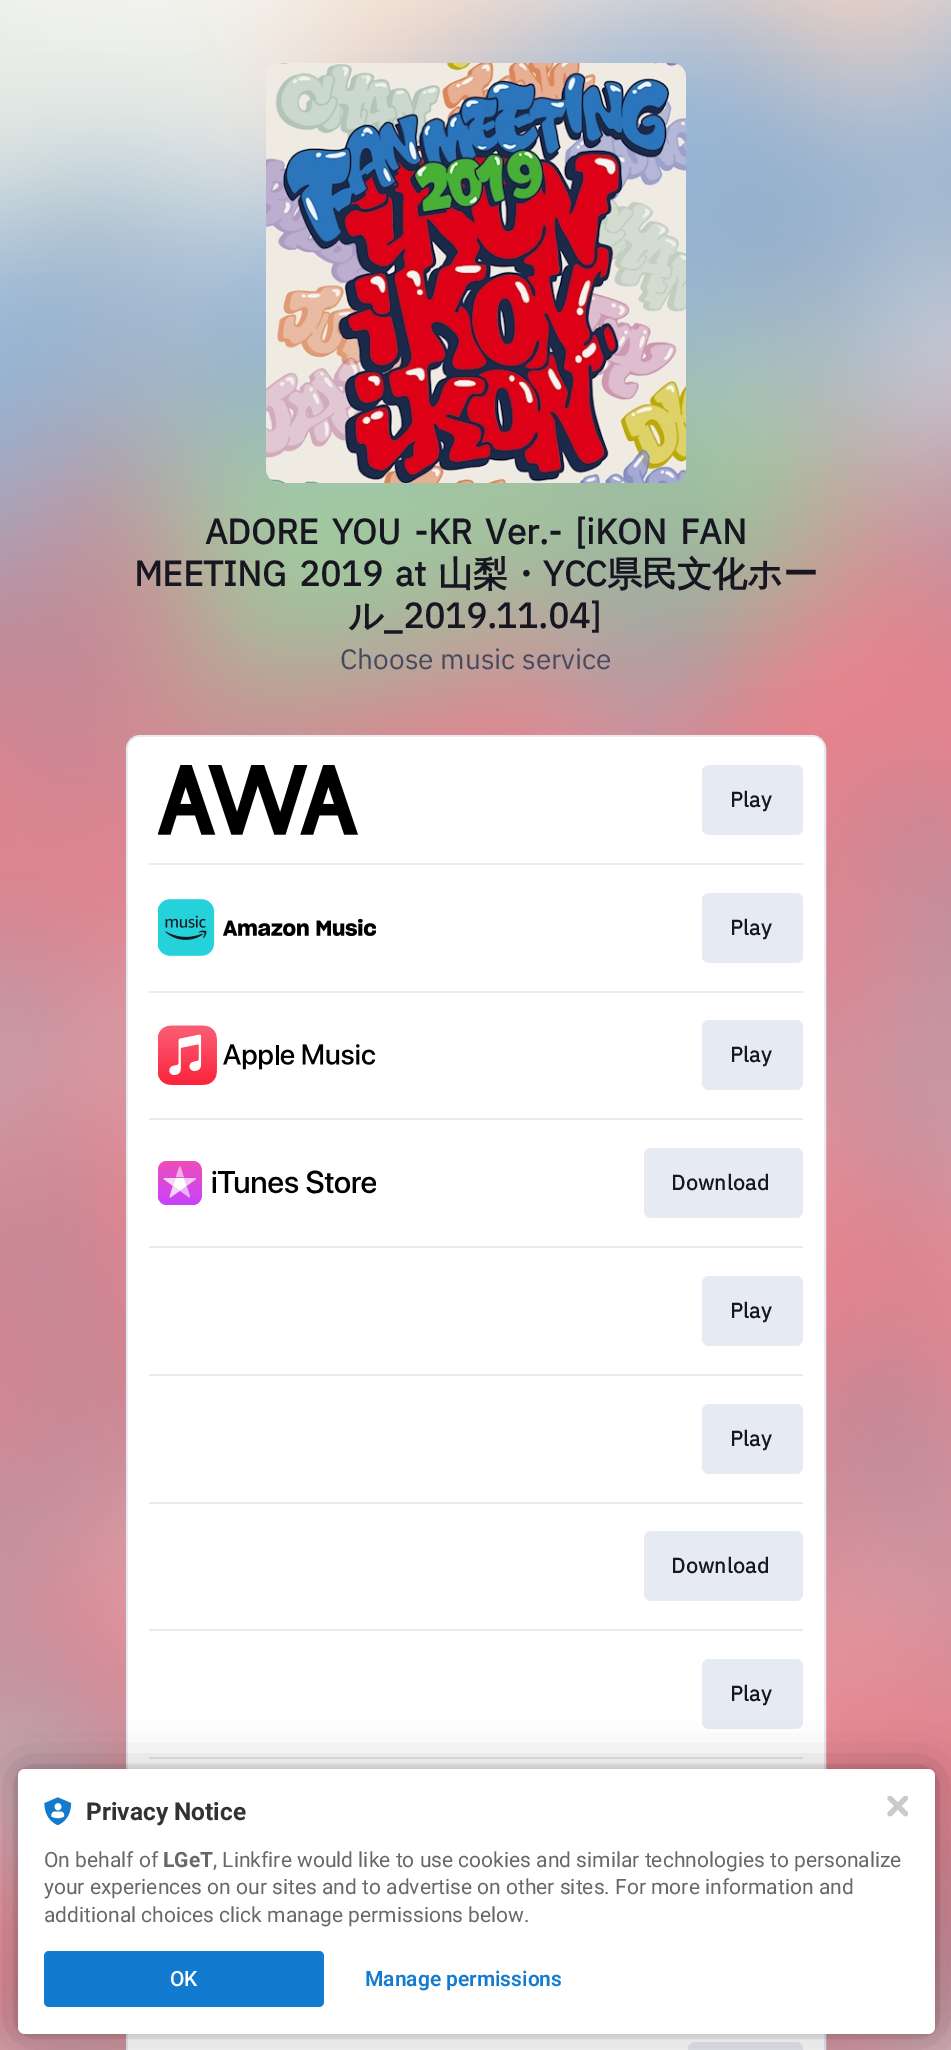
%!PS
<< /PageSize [951 2050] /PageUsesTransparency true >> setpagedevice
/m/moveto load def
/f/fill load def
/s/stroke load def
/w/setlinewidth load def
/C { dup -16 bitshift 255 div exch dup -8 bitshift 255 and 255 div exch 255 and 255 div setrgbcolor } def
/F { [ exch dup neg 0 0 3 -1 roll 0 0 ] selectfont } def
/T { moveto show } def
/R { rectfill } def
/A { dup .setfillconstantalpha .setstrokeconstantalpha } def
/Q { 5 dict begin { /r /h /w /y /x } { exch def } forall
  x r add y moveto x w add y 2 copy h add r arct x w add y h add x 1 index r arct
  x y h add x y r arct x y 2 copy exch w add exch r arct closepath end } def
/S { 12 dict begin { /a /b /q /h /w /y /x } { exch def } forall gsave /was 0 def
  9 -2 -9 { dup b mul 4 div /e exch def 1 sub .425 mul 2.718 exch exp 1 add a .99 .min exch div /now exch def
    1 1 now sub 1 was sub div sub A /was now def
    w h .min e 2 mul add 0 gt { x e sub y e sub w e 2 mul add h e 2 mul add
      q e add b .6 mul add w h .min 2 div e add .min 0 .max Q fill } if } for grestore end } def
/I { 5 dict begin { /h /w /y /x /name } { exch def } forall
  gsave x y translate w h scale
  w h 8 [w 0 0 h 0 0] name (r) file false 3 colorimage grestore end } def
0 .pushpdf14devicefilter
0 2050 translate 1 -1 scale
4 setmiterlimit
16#FFFFFF C
0 0 951 2050 R
(1.rgb) 0 0 951 2050 I
(2.rgb) 266 63 420 420 I
/IBMPlexSans-Bold 35 F
16#181721 C
205 544 m 4.75 0 32 (ADORE YOU -KR Ver.- [iKON FAN) widthshow
134 586 m 4 0 32 (MEETING 2019 at) widthshow
/WenQuanYiZenHei-Bold 35 F
(山梨・) 438 586 T
/IBMPlexSans-Bold 35 F
(YCC) 543 586 T
/WenQuanYiZenHei-Bold 35 F
(県民文化ホー) 607 586 T
(ル) 348 628 T
/IBMPlexSans-Bold 35 F
(_2019.11.04]) 383 628 T
/IBMPlexSans-Regular 28 F
16#454B5F C
(Choose music service) 340 669 T
16#E6EAF2 C
2 w
127 736 698 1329 13 Q s
16#FFFFFF C
128 737 696 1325 12 Q f
(3.rgb) 158 765 200 70 I
16#E6EAF2 C
702 765 101 70 7 Q f
/IBMPlexSans-Bold 21 F
16#181721 C
730 807 m .5 0 (Play) ashow
16#E6EAF2 C
149 863 654 2 R
(4.rgb) 158 899 218 57 I
702 893 101 70 7 Q f
16#181721 C
730 935 m .5 0 (Play) ashow
16#E6EAF2 C
149 991 654 2 R
(5.rgb) 158 1025 218 60 I
702 1020 101 70 7 Q f
16#181721 C
730 1062 m .5 0 (Play) ashow
16#E6EAF2 C
149 1118 654 2 R
(6.rgb) 158 1161 218 44 I
644 1148 159 70 7 Q f
16#181721 C
671 1190 m .5 0 (Download) ashow
16#E6EAF2 C
149 1246 654 2 R
702 1276 101 70 7 Q f
16#181721 C
730 1318 m .5 0 (Play) ashow
16#E6EAF2 C
149 1374 654 2 R
702 1404 101 70 7 Q f
16#181721 C
730 1446 m .5 0 (Play) ashow
16#E6EAF2 C
149 1502 654 2 R
644 1531 159 70 7 Q f
16#181721 C
671 1573 m .5 0 (Download) ashow
16#E6EAF2 C
149 1629 654 2 R
702 1659 101 70 7 Q f
16#181721 C
730 1701 m .5 0 (Play) ashow
16#E6EAF2 C
149 1757 654 2 R
688 2042 115 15 7 Q f
16#000000 C
18 1769 917 265 7 3.5 .12 S
18 1769 917 265 7 21 .3 S
16#FFFFFF C
18 1769 917 265 7 Q f
(7.rgb) 887 1796 21 21 I
(8.rgb) 44 1797 28 28 I
/Roboto-Bold 24.5 F
16#323232 C
(Privacy Notice) 86 1820 T
/Roboto-Regular 21 F
16#686868 C
(On behalf of) 44 1867 T
/Roboto-Bold 21 F
(LGeT) 163 1867 T
/Roboto-Regular 21 F
(, Linkfire would like to use cookies and similar technologies to personalize) 213 1867 T
(your experiences on our sites and to advertise on other sites. For more information and) 44 1894 T
(additional choices click manage permissions below.) 44 1922 T
16#137BCF C
44 1951 280 56 5 Q f
/Roboto-Medium 21 F
16#FFFFFF C
(OK) 170 1986 T
/Roboto-SemiBold 21 F
16#137BCF C
(Manage permissions) 365 1986 T
.poppdf14devicefilter showpage
